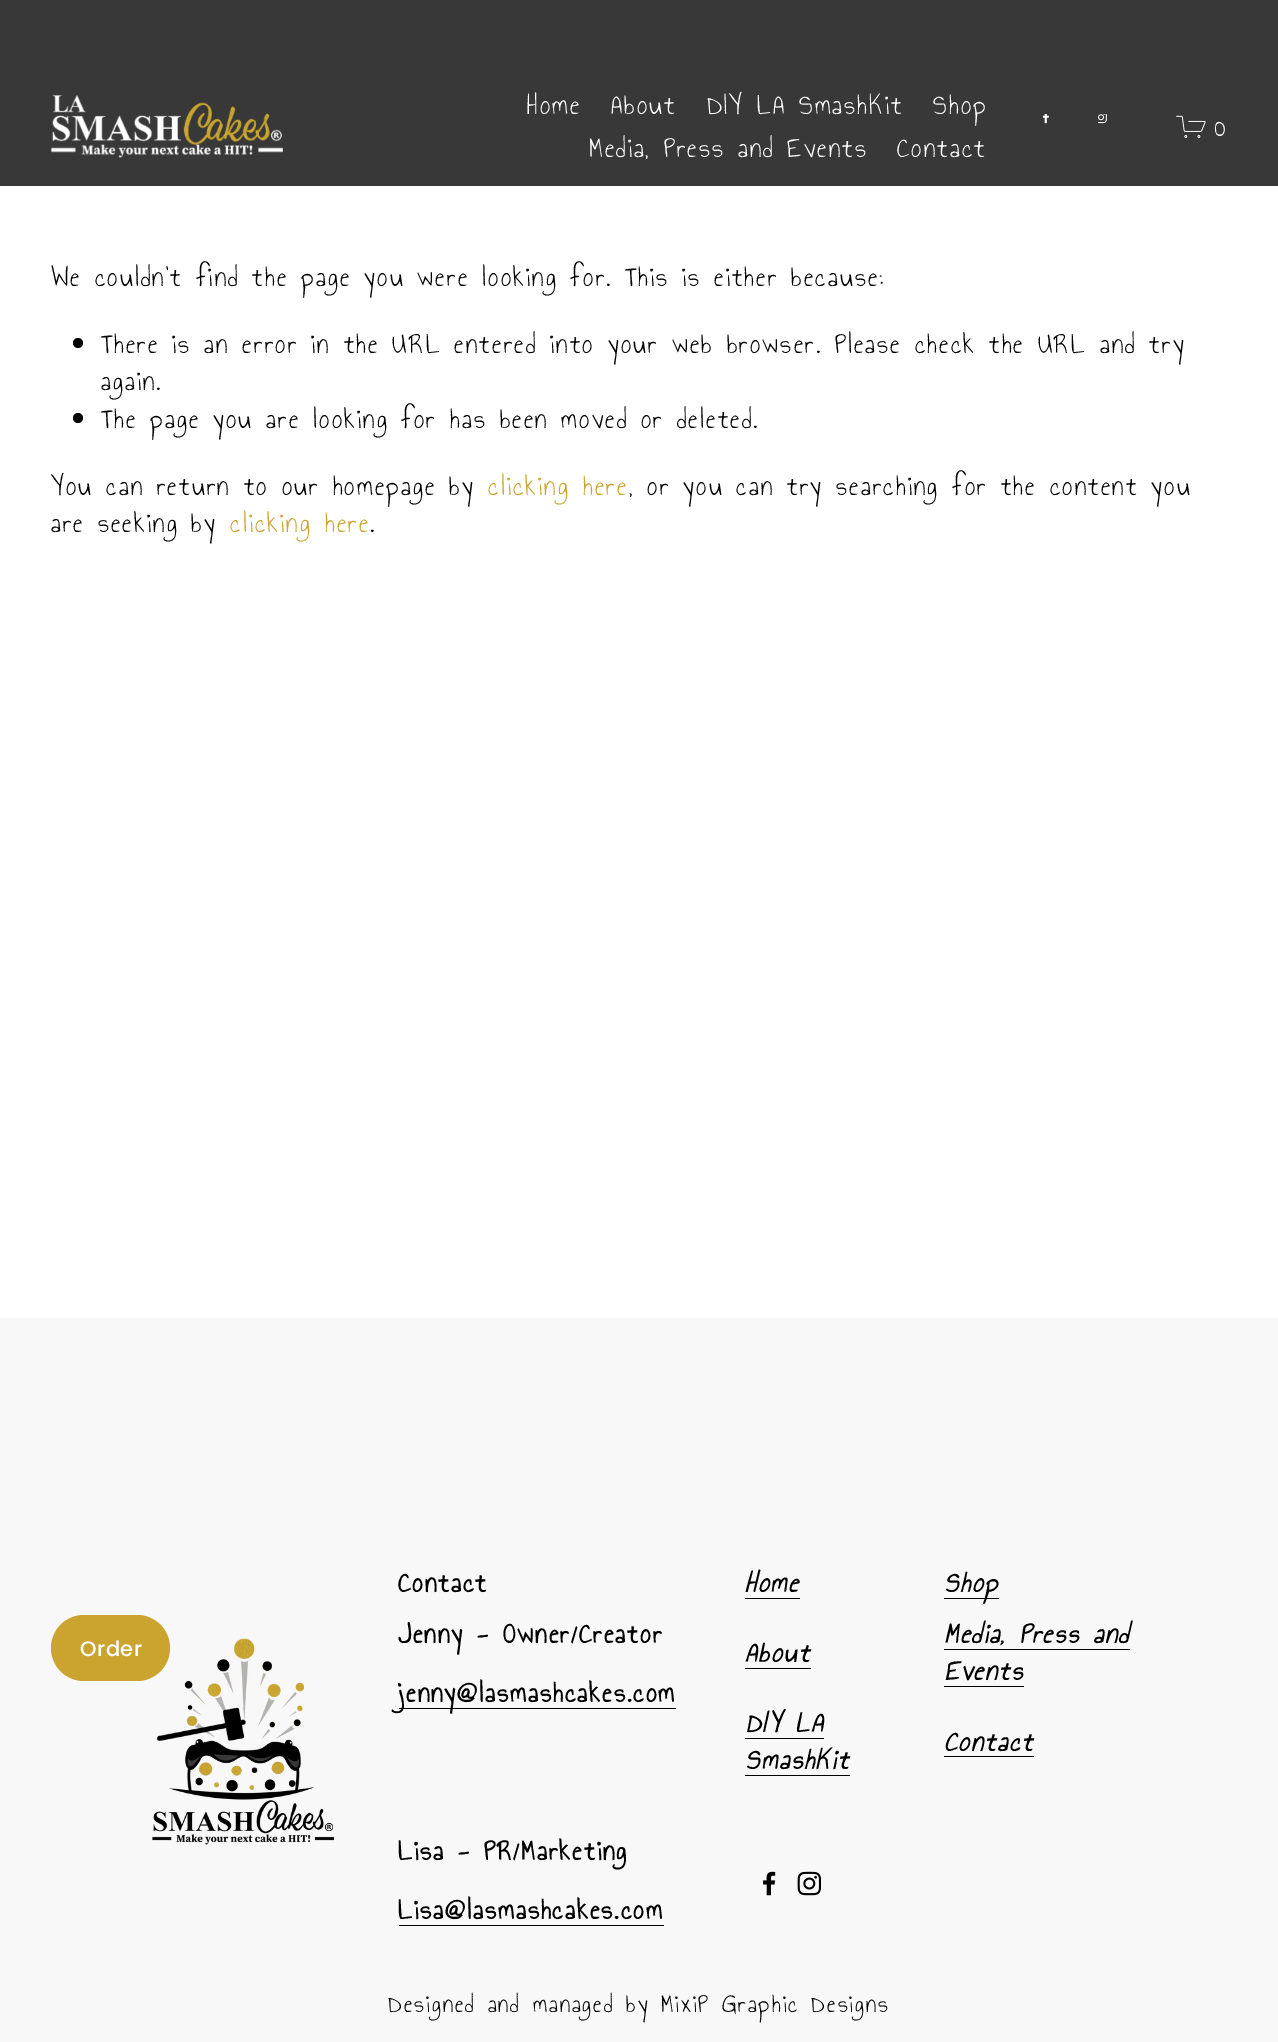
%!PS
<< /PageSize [1278 2042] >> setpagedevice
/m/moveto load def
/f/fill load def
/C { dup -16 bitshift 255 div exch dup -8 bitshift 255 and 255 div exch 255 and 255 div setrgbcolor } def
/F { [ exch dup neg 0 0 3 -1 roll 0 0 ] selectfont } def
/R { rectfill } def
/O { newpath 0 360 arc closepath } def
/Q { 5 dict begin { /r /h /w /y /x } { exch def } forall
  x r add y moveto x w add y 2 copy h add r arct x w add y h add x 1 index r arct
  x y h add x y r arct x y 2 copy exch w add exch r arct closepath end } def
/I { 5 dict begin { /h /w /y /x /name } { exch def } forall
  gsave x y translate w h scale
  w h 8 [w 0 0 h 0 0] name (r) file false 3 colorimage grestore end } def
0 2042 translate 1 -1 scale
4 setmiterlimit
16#FFFFFF C
0 0 1278 2042 R
16#383838 C
0 0 1278 186 R
(1.rgb) 50 95 233 63 I
/AnnieUseYourTelescope-Regular 28.9 F
16#FFFFFF C
527 114 m 2.02 0 (Home) ashow
611 114 m 2.02 0 (About) ashow
707 114 m 2.02 0 (DIY LA SmashKit) ashow
933 114 m 2.02 0 (Shop) ashow
589 157 m 2.02 0 (Media, Press and Events) ashow
897 157 m 2.02 0 (Contact) ashow
(2.rgb) 1043 114 6 10 I
(3.rgb) 1098 114 9 10 I
(4.rgb) 1176 115 30 23 I
1214 136 m 2.02 0 (0) ashow
16#000000 C
51 286 m 2.02 0 (We couldn't find the page you were looking for. This is either because:) ashow
78 343 5 O f
101 353 m 2.02 0 (There is an error in the URL entered into your web browser. Please check the URL and try) ashow
101 390 m 2.02 0 (again.) ashow
78 418 5 O f
101 428 m 2.02 0 (The page you are looking for has been moved or deleted.) ashow
51 495 m 2.02 0 (You can return to our homepage by) ashow
16#CBA430 C
488 495 m 2.02 0 (clicking here) ashow
16#000000 C
629 495 m 2.02 0 (, or you can try searching for the content you) ashow
51 532 m 2.02 0 (are seeking by) ashow
16#CBA430 C
230 532 m 2.02 0 (clicking here) ashow
16#000000 C
370 532 m 2.02 0 (.) ashow
16#F8F8F8 C
0 1318 1278 724 R
/AnnieUseYourTelescope-Bold 28.9 F
16#000000 C
398 1592 m 2.02 0 (Contact) ashow
/AnnieUseYourTelescope-BoldItalic 28.9 F
745 1592 m 2.02 0 (Home) ashow
745 1598 55 1 R
944 1598 55 1 R
944 1592 m 2.02 0 (Shop) ashow
(5.rgb) 152 1638 183 207 I
16#CBA430 C
51 1615 119 66 33 Q f
/Poppins-Medium 21 F
16#FFFFFF C
80 1656 m .5 0 (Order) ashow
/AnnieUseYourTelescope-Bold 28.9 F
16#000000 C
398 1643 m 2.02 0 (Jenny - Owner/Creator) ashow
399 1708 277 1 R
398 1702 m 2.02 0 (jenny@lasmashcakes.com) ashow
/AnnieUseYourTelescope-BoldItalic 28.9 F
745 1662 m 2.02 0 (About) ashow
745 1668 66 1 R
944 1643 m 2.02 0 (Media, Press and) ashow
944 1649 186 1 R
944 1680 m 2.02 0 (Events) ashow
944 1686 80 1 R
745 1732 m 2.02 0 (DIY LA) ashow
745 1738 79 1 R
745 1769 m 2.02 0 (SmashKit) ashow
745 1775 105 1 R
944 1751 m 2.02 0 (Contact) ashow
944 1756 90 1 R
/AnnieUseYourTelescope-Bold 28.9 F
398 1860 m 2.02 0 (Lisa - PR/Marketing) ashow
398 1919 m 2.02 0 (Lisa@lasmashcakes.com) ashow
399 1925 265 1 R
(6.rgb) 763 1871 13 25 I
(7.rgb) 797 1871 24 25 I
/AnnieUseYourTelescope-Regular 25.8 F
388 2012 m 2.02 0 (Designed and managed by MixiP Graphic Designs) ashow
showpage
